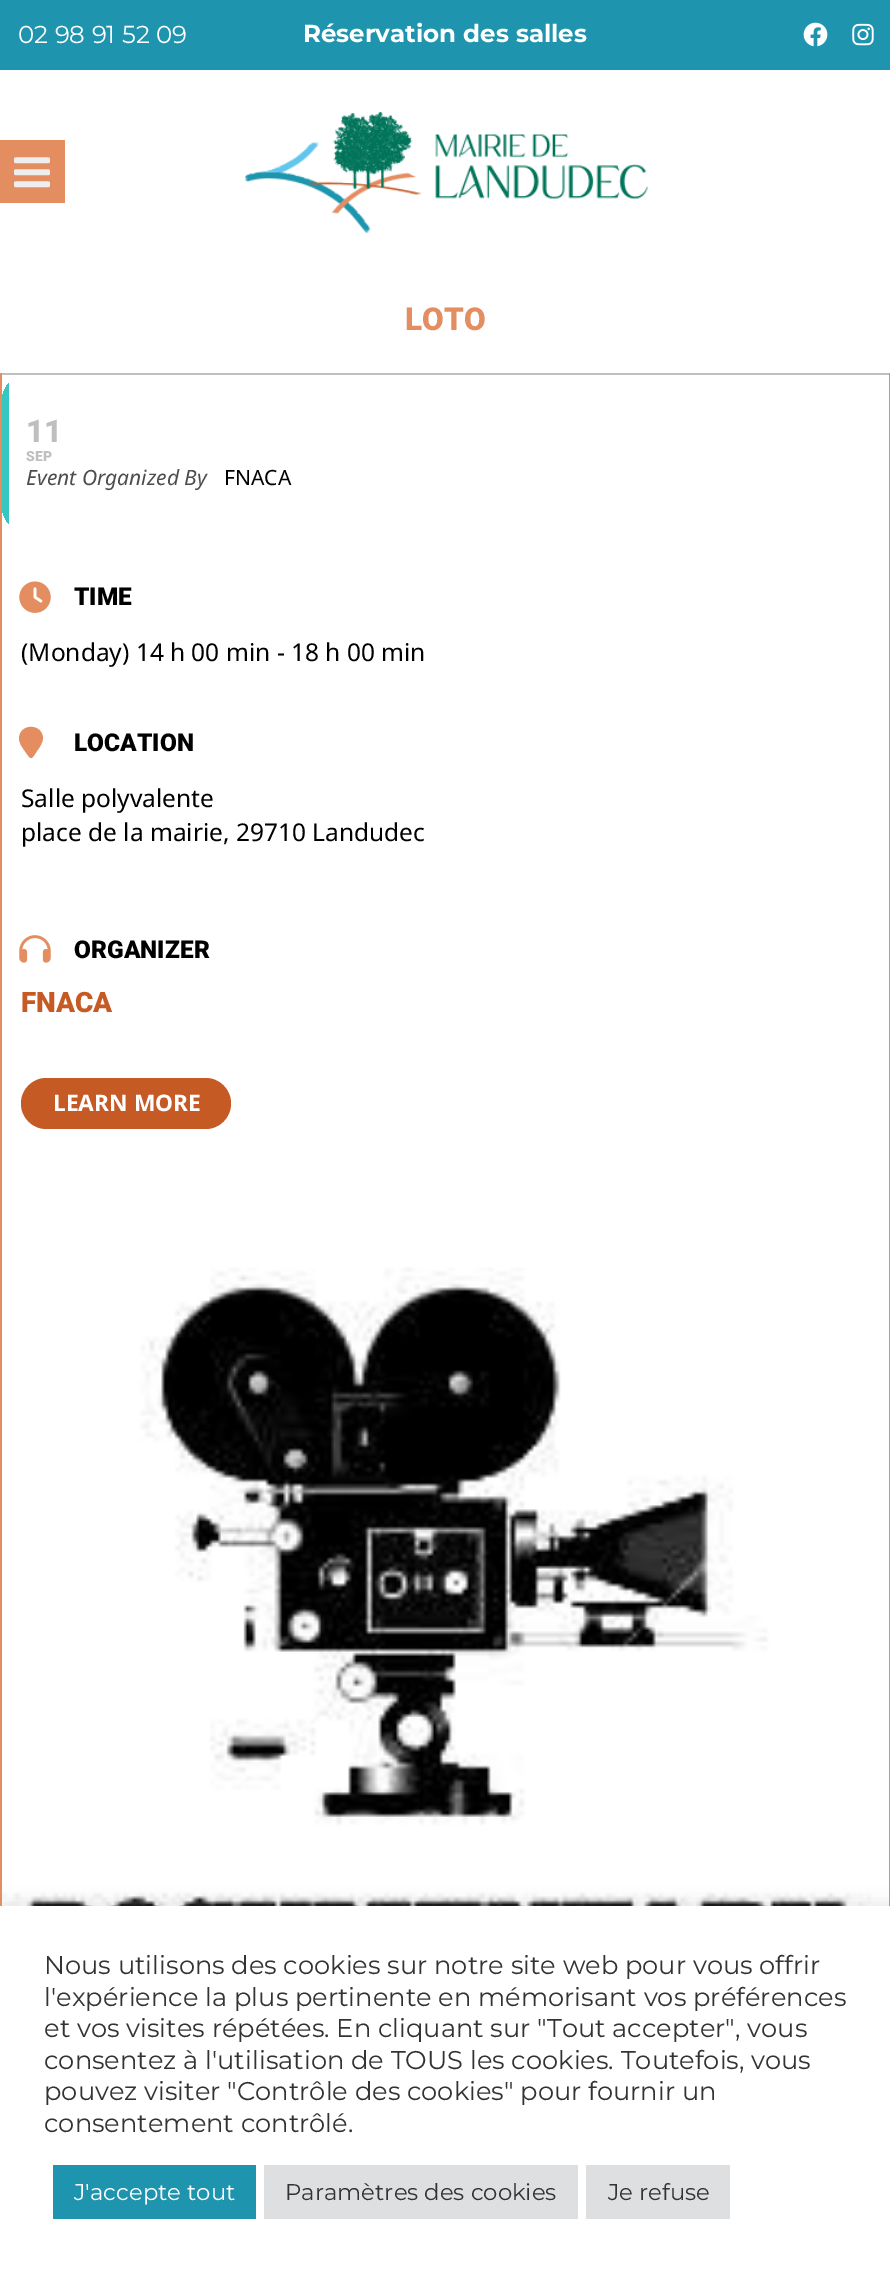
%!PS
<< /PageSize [890 2271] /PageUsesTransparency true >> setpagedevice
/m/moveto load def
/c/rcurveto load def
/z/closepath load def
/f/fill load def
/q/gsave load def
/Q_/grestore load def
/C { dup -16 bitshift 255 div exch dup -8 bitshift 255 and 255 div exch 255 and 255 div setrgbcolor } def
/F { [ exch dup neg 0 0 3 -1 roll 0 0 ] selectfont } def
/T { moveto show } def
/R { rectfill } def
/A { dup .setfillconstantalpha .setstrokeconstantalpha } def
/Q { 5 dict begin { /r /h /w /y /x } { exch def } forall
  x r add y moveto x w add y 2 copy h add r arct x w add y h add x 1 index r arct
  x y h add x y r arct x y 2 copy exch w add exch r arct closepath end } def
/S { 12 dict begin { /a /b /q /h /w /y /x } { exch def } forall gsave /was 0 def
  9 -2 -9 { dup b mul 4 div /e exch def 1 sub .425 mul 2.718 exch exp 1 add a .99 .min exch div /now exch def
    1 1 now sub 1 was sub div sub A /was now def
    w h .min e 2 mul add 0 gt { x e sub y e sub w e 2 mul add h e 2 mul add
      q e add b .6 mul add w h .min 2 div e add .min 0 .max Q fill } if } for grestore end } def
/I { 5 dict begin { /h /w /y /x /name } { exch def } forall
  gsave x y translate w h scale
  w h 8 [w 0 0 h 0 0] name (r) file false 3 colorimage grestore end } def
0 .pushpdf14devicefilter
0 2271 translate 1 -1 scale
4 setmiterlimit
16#FFFFFF C
0 0 890 2271 R
16#1F94AE C
0 0 890 70 R
/Montserrat-Regular 24.5 F
16#FFFFFF C
(02 98 91 52 09) 18 43 T
/Montserrat-Bold 24.5 F
(Réservation des salles) 303 42 T
(1.rgb) 803 22 25 25 I
(2.rgb) 852 23 22 23 I
(3.rgb) 245 112 403 121 I
16#E38D60 C
0 140 65 63 R
(4.rgb) 14 157 36 31 I
/Roboto-Black 31.5 F
(LOTO) 405 330 T
16#BFBFBF C
0 373 890 2 R
16#E38D60 C
889 373 1 1533 R
0 373 2 1533 R
q
2 375 887 157 26 Q clip newpath
16#35C7C2 C
2 375 7 157 R
Q_
16#BFBFBF C
(11) 26 442 T
/Roboto-Black 14 F
(SEP) 26 461 T
/NotoSans-Italic 21 F
16#4D4D4D C
(Event Organized By) 26 485 T
/NotoSans-Regular 21 F
16#000000 C
(FNACA) 224 485 T
(5.rgb) 19 581 32 32 I
/Roboto-Black 24.5 F
(TIME) 74 605 T
/NotoSans-Regular 24.5 F
(\(Monday\) 14 h 00 min - 18 h 00 min) 21 661 T
16#E38D60 C
43 738.5 m -.5 4.5 -3.5 9 -6 12.5 c -6 9 -5.5 9.5 -11.5 1 c -2.5 -3.5 -6.5 -9 -6.5 -13.5 c .5 -15.5 23.5 -15.5 24 0 c z f
/Roboto-Black 24.5 F
16#000000 C
(LOCATION) 74 751 T
/NotoSans-Regular 24.5 F
(Salle polyvalente) 21 807 T
(place de la mairie, 29710 Landudec) 21 841 T
(6.rgb) 19 935 32 28 I
/Roboto-Black 24.5 F
(ORGANIZER) 74 958 T
/Roboto-Black 28 F
16#C55A24 C
(FNACA) 21 1012 T
21 1078 210 51 25.5 Q f
/NotoSans-Bold 22.75 F
16#FFFFFF C
(LEARN MORE) 53 1111 T
(7.rgb) 2 1267 869 639 I
16#ACABAB C
0 1904 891 366 0 9 .3 S
16#FFFFFF C
0 1906 890 365 R
/Montserrat-Regular 25.7 F
16#333333 C
(Nous utilisons des cookies sur notre site web pour vous offrir) 44 1974 T
(l'expérience la plus pertinente en mémorisant vos préférences) 44 2006 T
(et vos visites répétées. En cliquant sur "Tout accepter", vous) 44 2037 T
(consentez à l'utilisation de TOUS les cookies. Toutefois, vous) 44 2069 T
(pouvez visiter "Contrôle des cookies" pour fournir un) 44 2100 T
(consentement contrôlé.) 44 2132 T
16#1F94AE C
53 2165 203 54 R
/Montserrat-Regular 22.75 F
16#FFFFFF C
(J'accepte tout) 74 2200 T
16#DEDFE0 C
264 2165 314 54 R
16#333333 C
(Paramètres des cookies) 285 2200 T
16#DEDFE0 C
586 2165 144 54 R
16#333333 C
(Je refuse) 608 2200 T
.poppdf14devicefilter showpage
